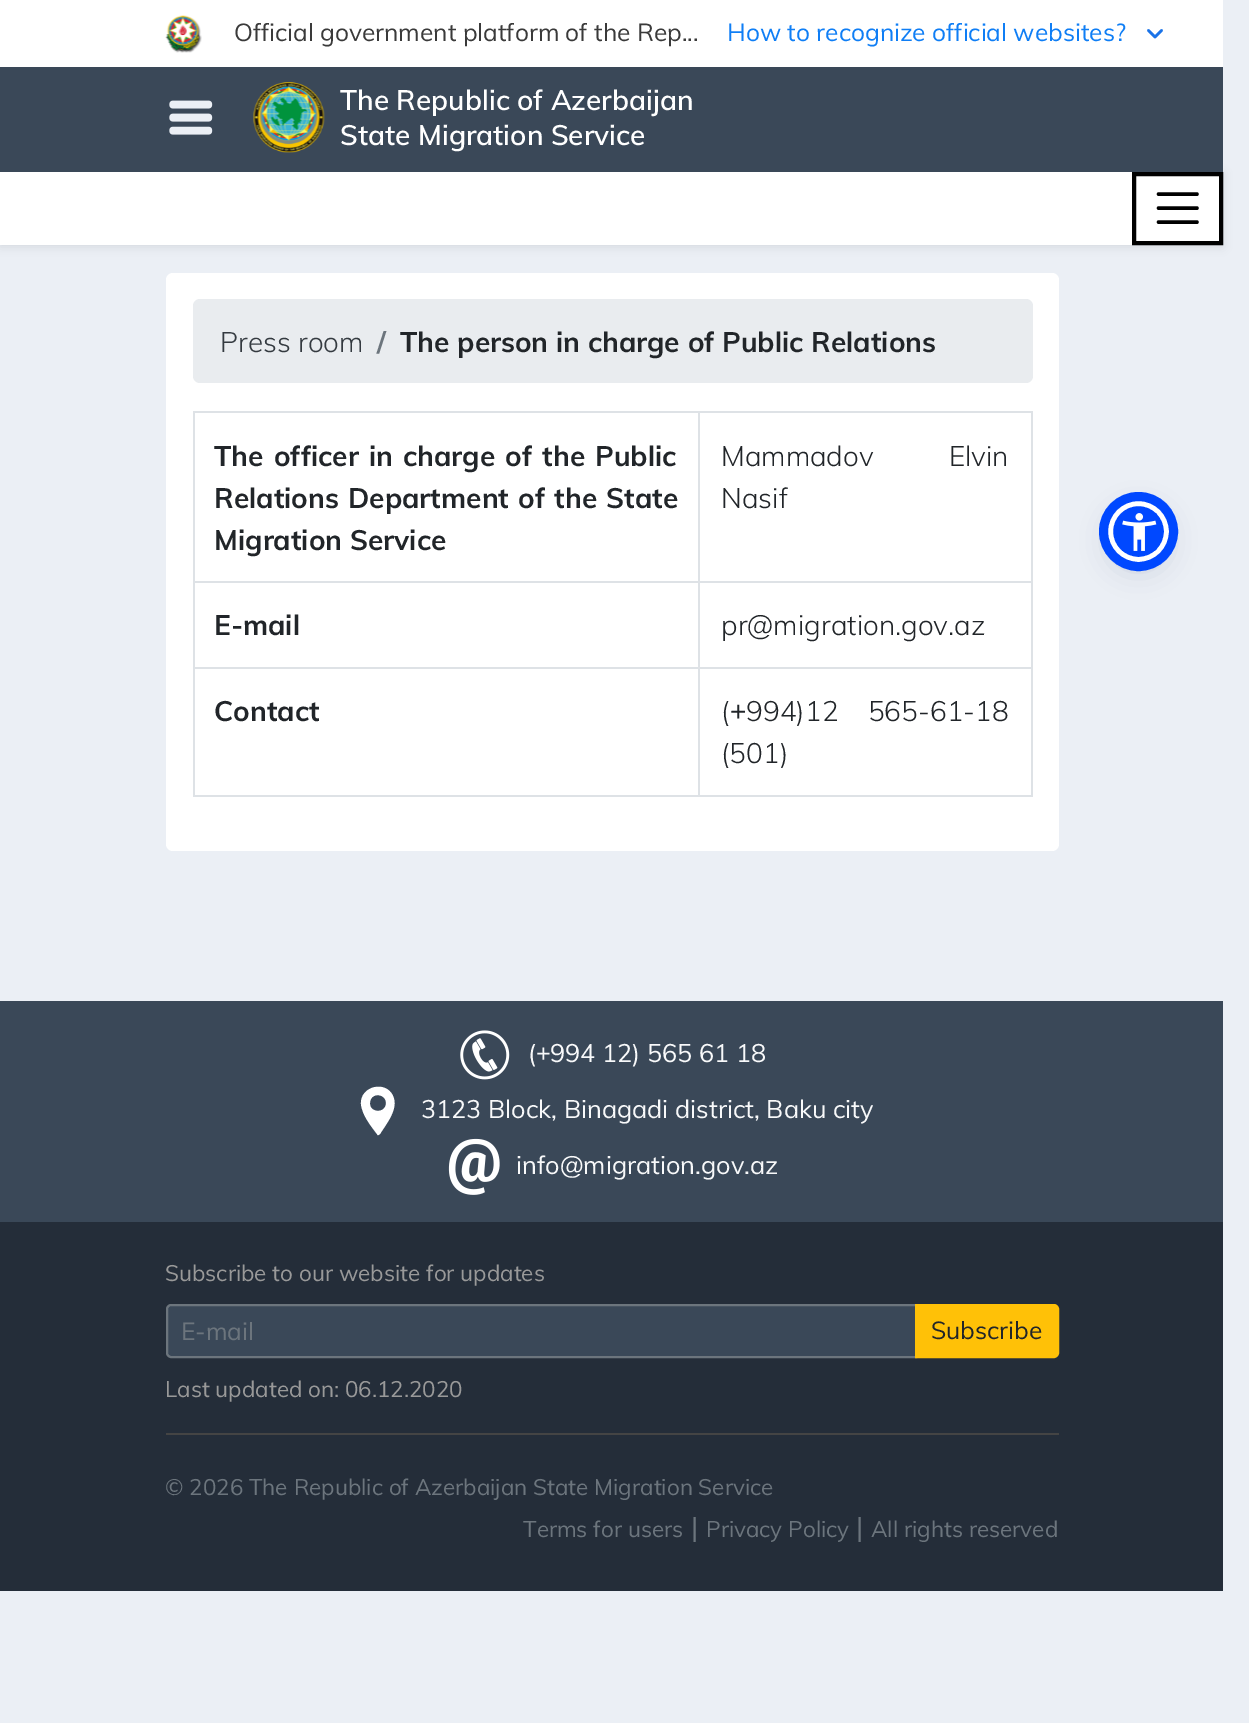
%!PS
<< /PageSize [1249 1723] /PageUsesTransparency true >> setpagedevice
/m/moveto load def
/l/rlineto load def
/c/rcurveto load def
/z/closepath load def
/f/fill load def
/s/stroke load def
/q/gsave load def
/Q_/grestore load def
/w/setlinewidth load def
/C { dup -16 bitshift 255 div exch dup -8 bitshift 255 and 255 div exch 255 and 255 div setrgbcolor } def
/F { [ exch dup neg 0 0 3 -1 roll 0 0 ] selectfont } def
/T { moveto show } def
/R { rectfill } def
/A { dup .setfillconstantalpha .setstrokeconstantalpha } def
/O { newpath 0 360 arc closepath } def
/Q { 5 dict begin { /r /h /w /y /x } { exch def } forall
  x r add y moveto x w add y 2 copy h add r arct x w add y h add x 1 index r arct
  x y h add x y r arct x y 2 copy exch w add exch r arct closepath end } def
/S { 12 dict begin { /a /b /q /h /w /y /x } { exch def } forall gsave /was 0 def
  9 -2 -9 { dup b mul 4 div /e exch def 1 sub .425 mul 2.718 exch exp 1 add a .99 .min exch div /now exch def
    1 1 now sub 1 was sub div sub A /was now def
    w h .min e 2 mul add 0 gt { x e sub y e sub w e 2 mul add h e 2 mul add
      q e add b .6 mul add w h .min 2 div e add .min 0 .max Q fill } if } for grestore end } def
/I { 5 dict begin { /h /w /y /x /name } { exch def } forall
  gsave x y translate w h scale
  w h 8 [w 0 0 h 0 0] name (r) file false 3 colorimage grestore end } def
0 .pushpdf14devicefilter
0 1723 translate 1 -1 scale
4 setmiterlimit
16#EBEFF5 C
0 0 1249 1723 R
16#FFFFFF C
0 0 1223 67 R
(1.rgb) 165 15 37 38 I
/Muli-Regular 24.5 F
16#3A3A3A C
(Official government platform of the Rep...) 234 41 T
16#0F7EF5 C
(How to recognize official websites?) 727 41 T
16#1A73E8 C
2.6 w
1 setlinecap
1 setlinejoin
1148.5 30.5 m 6.5 6.5 l 6.5 -6.5 l s
16#000000 C
0 173 1223 74 0 4.5 .08 S
16#3A4858 C
0 67 1223 105 R
(2.rgb) 169 100 44 35 I
(3.rgb) 253 82 72 71 I
/Muli-SemiBold 28 F
16#FFFFFF C
(The Republic of Azerbaijan) 340 110 T
(State Migration Service) 340 145 T
0 172 1219 73 R
16#000000 C
4 w
0 setlinecap
0 setlinejoin
1134 174 87 69 rectstroke
3.5 w
1 setlinecap
1158.5 194 m 38.5 0 l 1158.5 208 m 38.5 0 l 1158.5 222 m 38.5 0 l s
16#FFFFFF C
166 273 893 578 7 Q f
16#E9ECEF C
193 299 840 84 7 Q f
/Muli-Light 28 F
16#343A40 C
(Press room) 220 352 T
/Muli-Bold 28 F
16#6C757D C
(/) 377 352 T
16#212529 C
(The person in charge of Public Relations) 400 352 T
16#DEE2E6 C
698 411 335 2 R
698 581 335 2 R
698 667 335 2 R
1031 667 2 129 R
698 795 335 2 R
698 667 2 129 R
193 667 507 2 R
698 581 2 88 R
193 581 507 2 R
698 411 2 172 R
193 411 507 2 R
193 795 507 2 R
193 667 2 129 R
193 581 2 88 R
193 411 2 172 R
16#212529 C
214 466 m 2.5 0 32 (The officer in charge of the Public) widthshow
214 508 m 1.5 0 32 (Relations Department of the State) widthshow
(Migration Service) 214 550 T
16#DEE2E6 C
1031 581 2 88 R
1031 411 2 172 R
/Muli-Light 28 F
16#212529 C
721 466 m 68 0 32 (Mammadov Elvin) widthshow
(Nasif) 721 508 T
/Muli-Bold 28 F
(E-mail) 214 635 T
/Muli-Light 28 F
(pr@migration.gov.az) 721 635 T
/Muli-Bold 28 F
(Contact) 214 721 T
/Muli-Light 28 F
(\() 721 721 T
/LiberationSans-Regular 28 F
(+) 730 721 T
/Muli-Light 28 F
746 721 m 22 0 32 (994\)12 565-61-18) widthshow
(\(501\)) 721 763 T
16#3A4858 C
0 1001 1223 221 R
(4.rgb) 460 1030 50 50 I
/Muli-Regular 25.25 F
16#F8F9FA C
(\() 528 1062 T
/LiberationSans-Regular 25.25 F
(+) 536 1062 T
/Muli-Regular 25.25 F
(994 12\) 565 61 18) 550 1062 T
16#FFFFFF C
377 1134 m -6 -8 -15 -19 -16 -30 c -1 -18 25 -24 32 -8 c 6 13 -7 28 -13 38 c -2 1 -2 2 -3 0 c z 386 1103 m 0 -10 -16 -11 -16 0 c -1 10 16 11 16 0 c z f
16#F8F9FA C
(3123 Block, Binagadi district, Baku city) 421 1118 T
(5.rgb) 448 1138 52 57 I
(info@migration.gov.az) 516 1174 T
16#242D39 C
0 1222 1223 369 R
/Muli-Regular 22.4 F
16#999999 C
(Subscribe to our website for updates) 165 1281 T
16#3A4858 C
171 1305 m 745 0 l 0 52 l -745 0 l -2 0 -4 -2 -4 -4 c 0 -44 l 0 -2 2 -4 4 -4 c z q f Q_
16#6C757D C
2 w
0 setlinecap
s
/Muli-Regular 24.5 F
(E-mail) 181 1340 T
16#FFC107 C
916 1305 m 138 0 l 2 0 4 2 4 4 c 0 44 l 0 2 -2 4 -4 4 c -138 0 l z q f Q_
s
16#212529 C
(Subscribe) 931 1339 T
/Muli-Regular 22.4 F
16#999999 C
(Last updated on: 06.12.2020) 165 1397 T
16#444444 C
166 1433 893 2 R
16#6C757D C
(© 2026 The Republic of Azerbaijan State Migration Service) 165 1495 T
(Terms for users) 523 1537 T
/Muli-Regular 28 F
(|) 691 1537 T
/Muli-Regular 22.4 F
(Privacy Policy) 706 1537 T
/Muli-Regular 28 F
(|) 856 1537 T
/Muli-Regular 22.4 F
(All rights reserved) 871 1537 T
16#5D6494 C
1108 504 61 61 30.5 3.5 .2 S
16#252C61 C
1108 509 61 62 30.5 13 .15 S
16#0048FF C
1138.5 531.5 28 O q f Q_
16#FFFFFF C
5 w
s
16#0048FF C
9 w
1138.5 531.5 35 O s
(6.rgb) 1122 513 35 38 I
.poppdf14devicefilter showpage
